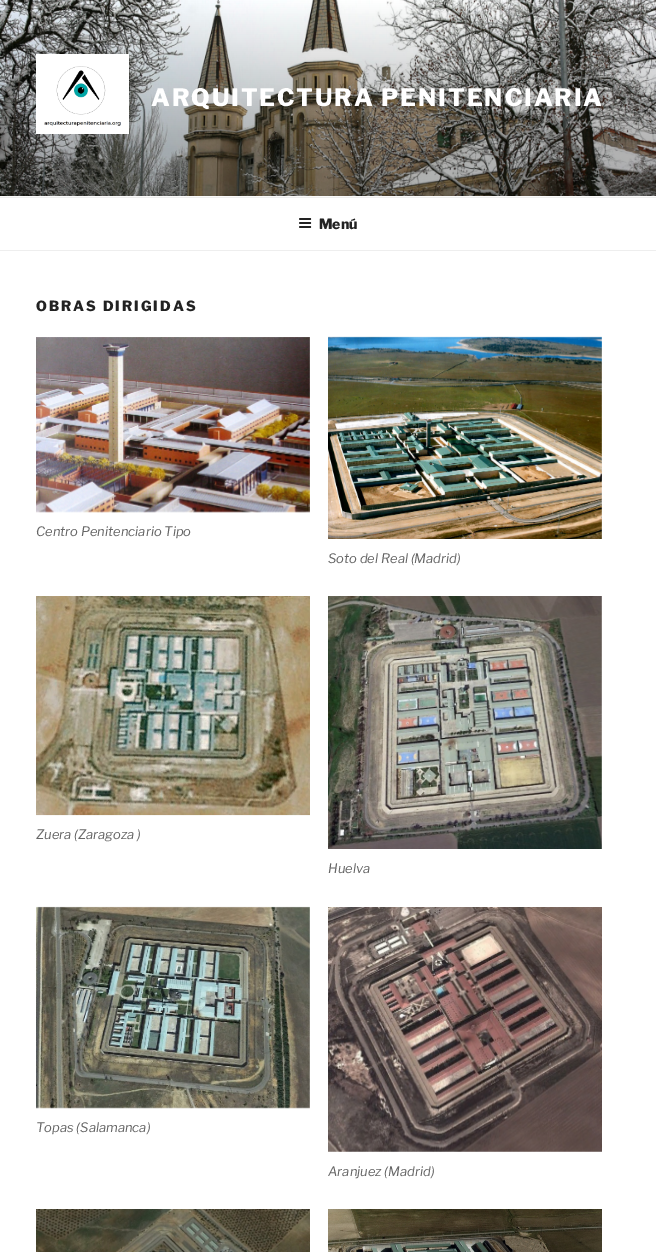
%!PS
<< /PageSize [656 1252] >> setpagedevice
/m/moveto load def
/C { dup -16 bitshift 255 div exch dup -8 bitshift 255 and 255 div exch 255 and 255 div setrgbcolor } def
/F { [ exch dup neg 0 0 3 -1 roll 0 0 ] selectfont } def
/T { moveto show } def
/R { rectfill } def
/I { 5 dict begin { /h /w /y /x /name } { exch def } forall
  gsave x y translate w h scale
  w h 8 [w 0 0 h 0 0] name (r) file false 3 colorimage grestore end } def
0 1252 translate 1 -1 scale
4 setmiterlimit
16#FFFFFF C
0 0 656 1252 R
16#FAFAFA C
0 196 656 1 R
(1.rgb) 0 0 656 196 I
(2.rgb) 36 54 93 80 I
/LibreFranklin-Thin 24 F
16#FFFFFF C
151 106 m 1.9 0 (ARQUITECTURA PENITENCIARIA) ashow
16#EEEEEE C
0 197 656 1 R
0 250 656 1 R
(3.rgb) 299 218 13 10 I
/LibreFranklin-Thin 14 F
16#222222 C
(Menú) 319 229 T
36 311 m 2 0 (OBRAS DIRIGIDAS) ashow
(4.rgb) 36 337 274 176 I
/LibreFranklin-ThinItalic 13 F
16#666666 C
(Centro Penitenciario Tipo) 36 536 T
(5.rgb) 328 336 274 203 I
(Soto del Real \(Madrid\)) 328 563 T
(6.rgb) 36 596 274 220 I
(Zuera \(Zaragoza \)) 36 839 T
(7.rgb) 328 596 274 253 I
(Huelva) 328 873 T
(8.rgb) 36 906 274 203 I
(Topas \(Salamanca\)) 36 1132 T
(9.rgb) 328 907 274 245 I
(Aranjuez \(Madrid\)) 328 1176 T
(10.rgb) 36 1209 274 43 I
(11.rgb) 328 1209 274 43 I
showpage
